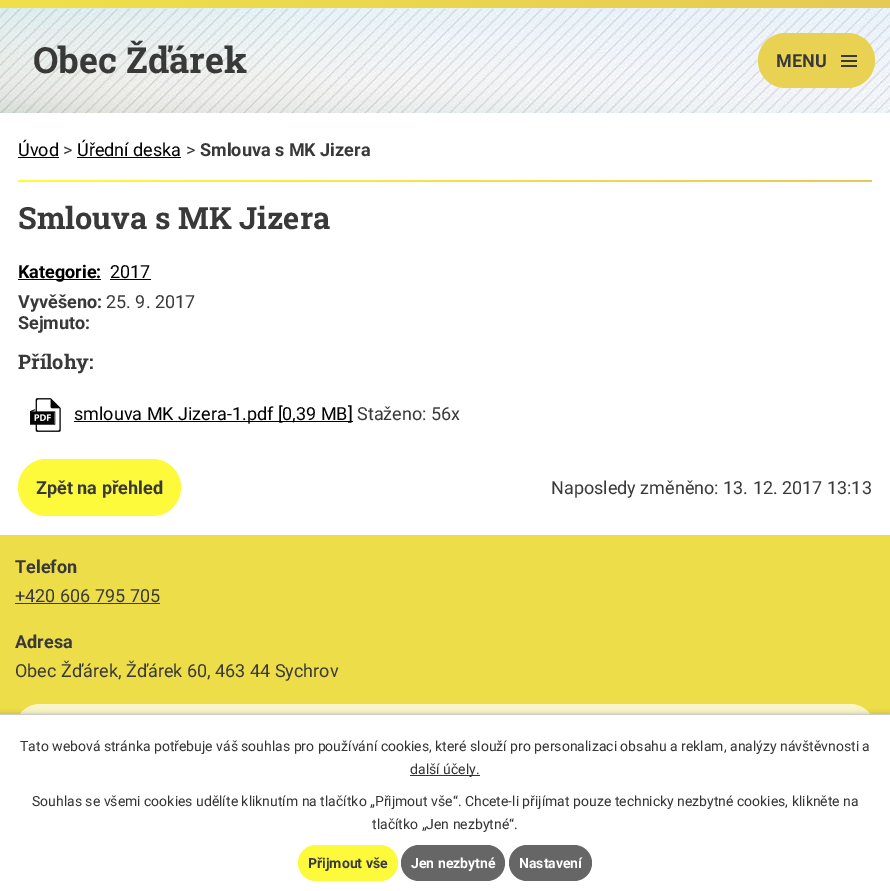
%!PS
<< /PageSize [890 891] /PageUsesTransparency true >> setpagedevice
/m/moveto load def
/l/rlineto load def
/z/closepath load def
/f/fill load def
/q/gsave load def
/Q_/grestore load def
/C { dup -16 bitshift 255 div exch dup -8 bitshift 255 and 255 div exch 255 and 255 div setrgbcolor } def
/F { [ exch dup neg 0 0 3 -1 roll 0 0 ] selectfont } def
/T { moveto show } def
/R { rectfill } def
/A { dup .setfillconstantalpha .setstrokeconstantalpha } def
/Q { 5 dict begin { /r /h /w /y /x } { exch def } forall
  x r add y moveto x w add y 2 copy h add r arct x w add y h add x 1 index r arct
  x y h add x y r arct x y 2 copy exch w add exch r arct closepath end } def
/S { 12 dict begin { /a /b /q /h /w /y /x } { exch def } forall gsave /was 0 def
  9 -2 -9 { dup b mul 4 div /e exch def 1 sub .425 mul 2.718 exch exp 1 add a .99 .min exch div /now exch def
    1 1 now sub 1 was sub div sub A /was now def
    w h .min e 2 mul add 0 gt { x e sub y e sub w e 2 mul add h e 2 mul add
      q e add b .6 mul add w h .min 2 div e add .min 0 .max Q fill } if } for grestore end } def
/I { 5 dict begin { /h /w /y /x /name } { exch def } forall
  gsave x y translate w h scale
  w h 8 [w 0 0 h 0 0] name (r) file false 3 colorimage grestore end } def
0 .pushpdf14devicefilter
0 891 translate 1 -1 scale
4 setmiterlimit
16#FFFFFF C
0 0 890 891 R
(1.rgb) 0 0 890 8 I
(2.rgb) 0 8 890 105 I
/RobotoSlab-Bold 36 F
16#393939 C
(Obec Žďárek) 33 73 T
16#E9D251 C
758 33 117 55 27.5 Q f
/Roboto-Bold 18 F
16#393939 C
(MENU) 776 67 T
(3.rgb) 841 55 16 12 I
/Roboto-Regular 18 F
16#000000 C
(Úvod) 18 156 T
18 157 41 1 R
16#393939 C
(>) 63 156 T
16#000000 C
(Úřední deska) 77 156 T
77 157 104 1 R
16#393939 C
(>) 186 156 T
/Roboto-Bold 18 F
(Smlouva s MK Jizera) 200 156 T
q 18 180 m 854 0 l 0 2 l -854 0 l z clip newpath
<< /ShadingType 2 /ColorSpace /DeviceRGB /Coords [18 181 872 181] /Extend [true true] /Function << /FunctionType 2 /Domain [0 1] /C0 [.996 .988 .224] /C1 [.898 .792 .329] /N 1 >> >> shfill Q_
/RobotoSlab-Bold 30.6 F
(Smlouva s MK Jizera) 18 229 T
16#000000 C
18 279 83 1 R
/Roboto-Bold 18 F
(Kategorie:) 18 278 T
/Roboto-Regular 18 F
(2017) 110 278 T
110 279 41 1 R
/Roboto-Bold 18 F
16#393939 C
(Vyvěšeno:) 18 308 T
/Roboto-Regular 18 F
(25. 9. 2017) 106 308 T
/Roboto-Bold 18 F
(Sejmuto:) 18 329 T
/RobotoSlab-Bold 20 F
(Přílohy:) 18 369 T
(4.rgb) 30 398 31 34 I
16#000000 C
74 421 279 1 R
/Roboto-Regular 18 F
(smlouva MK Jizera-1.pdf [0,39 MB]) 74 420 T
16#393939 C
(Staženo: 56x) 357 420 T
16#FDFA3B C
18 459 163 57 28.5 Q f
/Roboto-Bold 18 F
16#393939 C
(Zpět na přehled) 36 494 T
/Roboto-Regular 18 F
(Naposledy změněno: 13. 12. 2017 13:13) 551 494 T
16#EDDD49 C
0 535 890 179 R
/Roboto-Bold 18 F
16#393939 C
(Telefon) 15 573 T
/Roboto-Regular 18 F
(+420 606 795 705) 15 602 T
15 603 145 1 R
/Roboto-Bold 18 F
(Adresa) 15 648 T
/Roboto-Regular 18 F
(Obec Žďárek, Žďárek 60, 463 44 Sychrov) 15 677 T
16#F9F5C8 C
15 704 860 126 25 Q f
16#000000 C
0 714 890 177 0 2.5 .2 S
16#FFFFFF C
0 715 890 176 R
16#CCCCCC C
0 714 890 1 R
/Roboto-Regular 14 F
16#333333 C
(Tato webová stránka potřebuje váš souhlas pro používání cookies, které slouží pro personalizaci obsahu a reklam, analýzy návštěvnosti a) 20 751 T
410 775 70 1 R
(další účely.) 410 774 T
(Souhlas se všemi cookies udělíte kliknutím na tlačítko „Přijmout vše“. Chcete-li přijímat pouze technicky nezbytné cookies, klikněte na) 32 806 T
(tlačítko „Jen nezbytné“.) 372 829 T
16#FDFA3B C
298 845 100 36 18 Q f
/Roboto-Bold 14 F
16#393939 C
(Přijmout vše) 308 868 T
16#666666 C
401 845 104 36 18 Q f
16#FFFFFF C
(Jen nezbytné) 411 868 T
16#666666 C
509 845 83 36 18 Q f
16#FFFFFF C
(Nastavení) 519 868 T
.poppdf14devicefilter showpage
